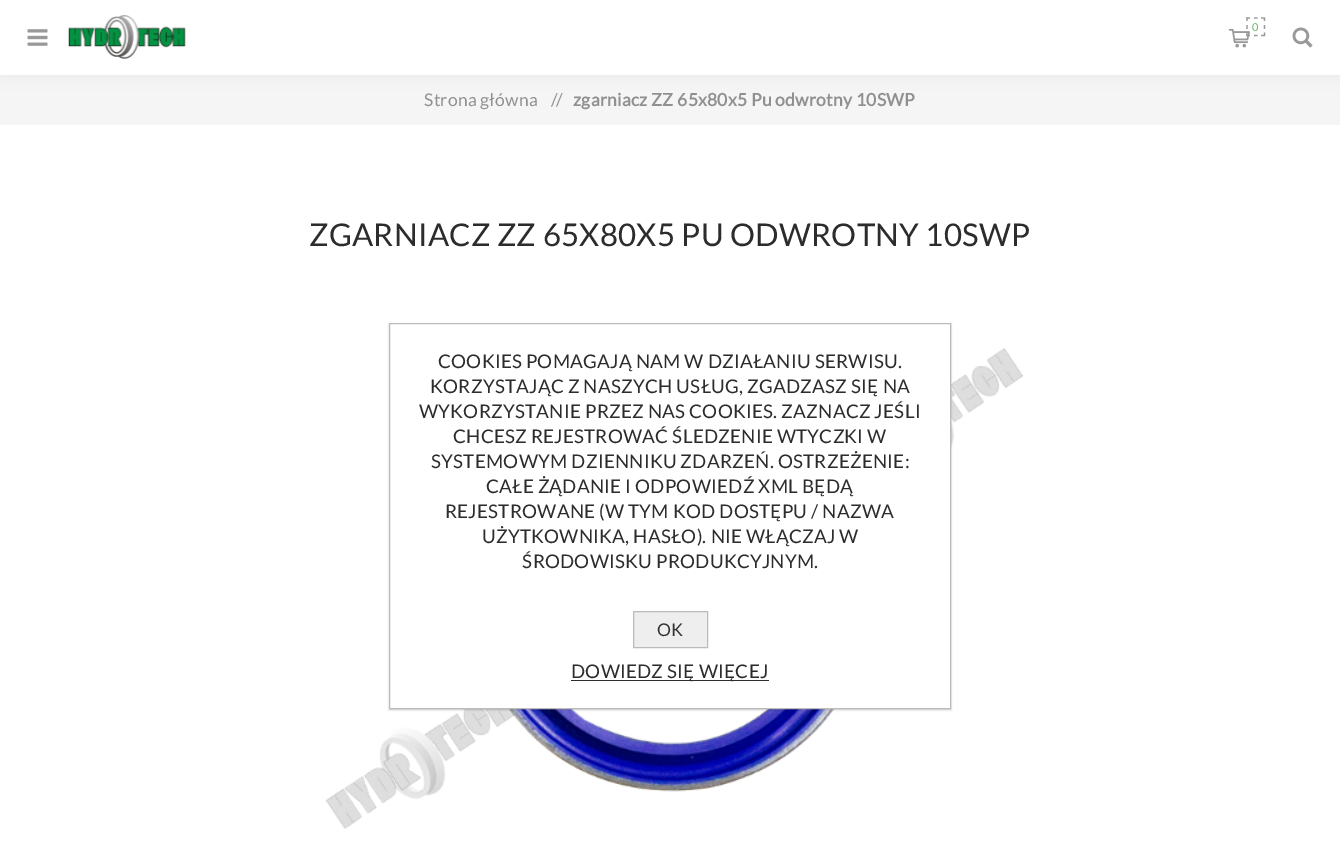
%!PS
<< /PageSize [1340 868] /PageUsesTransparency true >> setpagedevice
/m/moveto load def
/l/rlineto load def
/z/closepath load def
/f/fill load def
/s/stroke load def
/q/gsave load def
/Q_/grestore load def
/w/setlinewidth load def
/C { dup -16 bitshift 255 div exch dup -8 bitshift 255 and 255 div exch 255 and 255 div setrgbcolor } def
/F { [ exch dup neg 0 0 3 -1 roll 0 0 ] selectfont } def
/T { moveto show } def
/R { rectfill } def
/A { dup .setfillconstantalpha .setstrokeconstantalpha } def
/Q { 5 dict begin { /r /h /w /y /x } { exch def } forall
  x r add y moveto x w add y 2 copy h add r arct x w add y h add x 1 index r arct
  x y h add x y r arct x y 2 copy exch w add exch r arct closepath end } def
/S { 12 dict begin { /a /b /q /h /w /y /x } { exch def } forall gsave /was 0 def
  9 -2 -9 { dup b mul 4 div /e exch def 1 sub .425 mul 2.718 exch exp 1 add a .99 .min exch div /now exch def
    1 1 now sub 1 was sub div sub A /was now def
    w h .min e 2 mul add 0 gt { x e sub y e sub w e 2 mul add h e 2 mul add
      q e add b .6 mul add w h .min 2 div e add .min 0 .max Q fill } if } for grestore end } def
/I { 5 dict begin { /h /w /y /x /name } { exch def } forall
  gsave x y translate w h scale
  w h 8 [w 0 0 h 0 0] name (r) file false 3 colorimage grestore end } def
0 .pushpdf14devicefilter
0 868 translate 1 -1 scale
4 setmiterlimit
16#FFFFFF C
0 0 1340 868 R
16#F5F5F5 C
0 75 1340 50 R
16#000000 C
0 0 1340 75 0 9 .06 S
16#FFFFFF C
0 0 1340 75 R
(1.rgb) 27 29 21 17 I
(2.rgb) 68 15 118 44 I
(3.rgb) 1228 28 22 20 I
16#999999 C
1.2 w
1246 18 m 4 0 l 1254 18 m 3.5 0 l 1261 18 m 4 0 l 1264.5 17.5 m 0 3.5 l 1264.5 25 m 0 4 l 1264.5 32.5 m 0 3.5 l 1246 35.5 m 4 0 l 1254 35.5 m 3.5 0 l 1261 35.5 m 4 0 l 1247 17.5 m 0 3.5 l 1247 25 m 0 4 l 1247 32.5 m 0 3.5 l s
/Lato-Regular 11 F
16#67B369 C
1252 31 m .25 0 (0) ashow
(4.rgb) 1292 27 21 21 I
/Lato-Regular 17.5 F
16#909090 C
424 106 m .25 0 (Strona główna) ashow
551 106 m -2 0 (//) ashow
/Lato-Bold 17.5 F
573 106 m .25 0 (zgarniacz ZZ 65x80x5 Pu odwrotny 10SWP) ashow
/Lato-Regular 31.25 F
16#2C2C2C C
309 246 m .25 0 (ZGARNIACZ ZZ 65X80X5 PU ODWROTNY 10SWP) ashow
(5.rgb) 325 348 699 481 I
16#000000 C
389 324 562 386 0 1 .2 S
16#FFFFFF C
389.5 323.5 m 561 0 l 0 385 l -561 0 l z q f Q_
16#BBBBBB C
1 w
s
/Lato-Regular 18.75 F
16#2C2C2C C
438 368 m .25 0 (COOKIES POMAGAJĄ NAM W DZIAŁANIU SERWISU.) ashow
430 393 m .25 0 (KORZYSTAJĄC Z NASZYCH USŁUG, ZGADZASZ SIĘ NA) ashow
419 418 m .25 0 (WYKORZYSTANIE PRZEZ NAS COOKIES. ZAZNACZ JEŚLI) ashow
453 443 m .25 0 (CHCESZ REJESTROWAĆ ŚLEDZENIE WTYCZKI W) ashow
431 468 m .25 0 (SYSTEMOWYM DZIENNIKU ZDARZEŃ. OSTRZEŻENIE:) ashow
486 493 m .25 0 (CAŁE ŻĄDANIE I ODPOWIEDŹ XML BĘDĄ) ashow
445 518 m .25 0 (REJESTROWANE \(W TYM KOD DOSTĘPU / NAZWA) ashow
482 543 m .25 0 (UŻYTKOWNIKA, HASŁO\). NIE WŁĄCZAJ W) ashow
522 568 m .25 0 (ŚRODOWISKU PRODUKCYJNYM.) ashow
16#EEEEEE C
633.5 611.5 m 74 0 l 0 36 l -74 0 l z q f Q_
16#BBBBBB C
s
/Lato-Regular 17.5 F
16#333333 C
(OK) 657 636 T
16#2C2C2C C
571 680 198 1 R
/Lato-Regular 18.75 F
571 678 m .25 0 (DOWIEDZ SIĘ WIĘCEJ) ashow
.poppdf14devicefilter showpage
